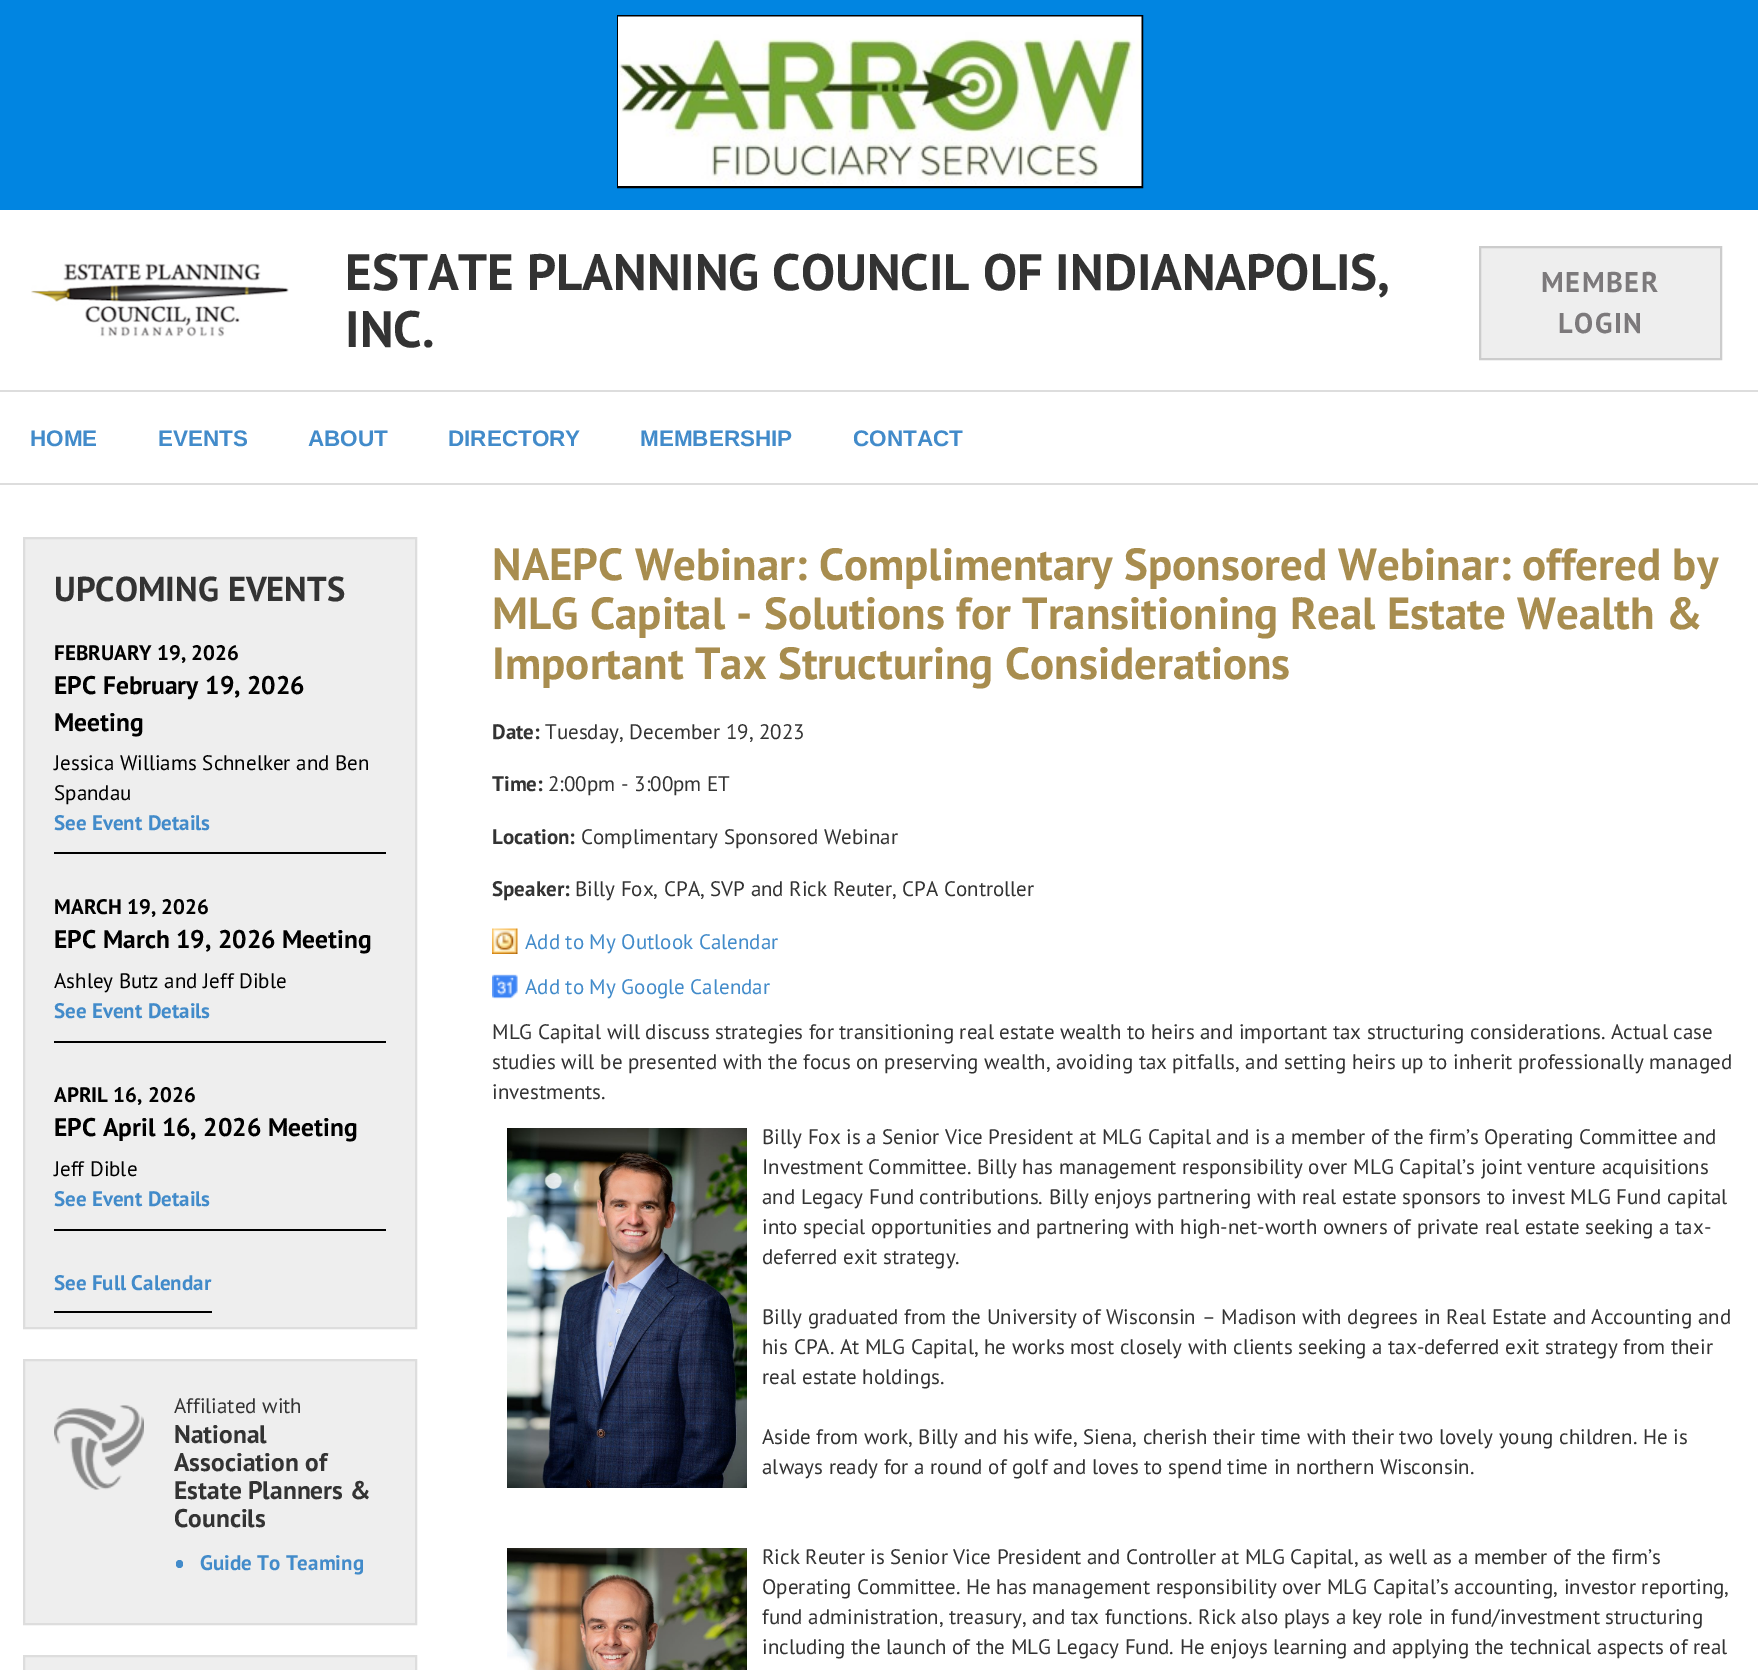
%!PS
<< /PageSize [1758 1670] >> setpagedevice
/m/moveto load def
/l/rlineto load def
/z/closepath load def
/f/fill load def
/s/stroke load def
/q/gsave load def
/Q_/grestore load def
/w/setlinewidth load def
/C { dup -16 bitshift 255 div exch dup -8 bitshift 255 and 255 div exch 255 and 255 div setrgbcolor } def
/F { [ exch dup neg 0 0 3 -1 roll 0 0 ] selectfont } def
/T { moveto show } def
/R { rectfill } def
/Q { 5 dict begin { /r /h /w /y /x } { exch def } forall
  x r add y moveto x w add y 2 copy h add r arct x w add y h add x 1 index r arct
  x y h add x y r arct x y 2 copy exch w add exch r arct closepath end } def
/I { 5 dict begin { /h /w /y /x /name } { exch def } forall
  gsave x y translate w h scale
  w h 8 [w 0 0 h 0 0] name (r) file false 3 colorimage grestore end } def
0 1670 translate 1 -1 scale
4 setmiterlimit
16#FFFFFF C
0 0 1758 1670 R
16#0185E1 C
0 0 1758 210 R
16#000000 C
2 w
618 16 524 171 rectstroke
(1.rgb) 618 16 524 170 I
16#DDDDDD C
0 390 1758 2 R
(2.rgb) 31 263 258 74 I
/PTSans-Bold 51 F
16#333333 C
(ESTATE PLANNING COUNCIL OF INDIANAPOLIS,) 345 290 T
(INC.) 345 347 T
16#EEEEEE C
1480 247 m 241 0 l 0 112 l -241 0 l z q f Q_
16#CCCCCC C
s
/PTSans-Bold 28.5 F
16#7C797B C
1541 292 m 1.5 0 (MEMBER) ashow
1558 333 m 1.5 0 (LOGIN) ashow
16#DDDDDD C
0 483 1758 2 R
/LiberationSans-Bold 22.5 F
16#428BCA C
(HOME) 30 446 T
(EVENTS) 158 446 T
(ABOUT) 308 446 T
(DIRECTORY) 448 446 T
(MEMBERSHIP) 640 446 T
(CONTACT) 853 446 T
16#EEEEEE C
24 538 m 392 0 l 0 790 l -392 0 l z q f Q_
16#DDDDDD C
s
/PTSans-Bold 34.5 F
16#333333 C
(UPCOMING EVENTS) 54 601 T
16#000000 C
54 852 332 2 R
/PTSans-Bold 21 F
(FEBRUARY 19, 2026) 54 660 T
/PTSans-Bold 25.5 F
(EPC February 19, 2026) 54 694 T
(Meeting) 54 731 T
/PTSans-Regular 21 F
(Jessica Williams Schnelker and Ben) 54 770 T
(Spandau) 54 800 T
/PTSans-Bold 21 F
16#428BCA C
(See Event Details) 54 830 T
16#000000 C
54 1041 332 2 R
(MARCH 19, 2026) 54 914 T
/PTSans-Bold 25.5 F
(EPC March 19, 2026 Meeting) 54 948 T
/PTSans-Regular 21 F
(Ashley Butz and Jeff Dible) 54 988 T
/PTSans-Bold 21 F
16#428BCA C
(See Event Details) 54 1018 T
16#000000 C
54 1229 332 2 R
(APRIL 16, 2026) 54 1102 T
/PTSans-Bold 25.5 F
(EPC April 16, 2026 Meeting) 54 1136 T
/PTSans-Regular 21 F
(Jeff Dible) 54 1176 T
/PTSans-Bold 21 F
16#428BCA C
(See Event Details) 54 1206 T
(See Full Calendar) 54 1290 T
16#000000 C
54 1311 158 2 R
16#EEEEEE C
24 1360 m 392 0 l 0 264 l -392 0 l z q f Q_
16#DDDDDD C
s
(3.rgb) 54 1405 90 85 I
/PTSans-Regular 21 F
16#333333 C
(Affiliated with) 174 1413 T
/PTSans-Bold 25.5 F
(National) 174 1443 T
(Association of) 174 1471 T
(Estate Planners &) 174 1499 T
(Councils) 174 1527 T
16#428BCA C
176 1560 7 8 3.5 Q f
/PTSans-Bold 21 F
(Guide To Teaming) 200 1570 T
16#EEEEEE C
24 1656 m 392 0 l 0 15 l -392 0 l z q f Q_
16#DDDDDD C
s
/PTSans-Bold 45 F
16#A88D4F C
(NAEPC Webinar: Complimentary Sponsored Webinar: offered by) 492 580 T
(MLG Capital - Solutions for Transitioning Real Estate Wealth &) 492 629 T
(Important Tax Structuring Considerations) 492 679 T
/PTSans-Bold 21 F
16#333333 C
(Date:) 492 739 T
/PTSans-Regular 21 F
(Tuesday, December 19, 2023) 545 739 T
/PTSans-Bold 21 F
(Time:) 492 791 T
/PTSans-Regular 21 F
(2:00pm - 3:00pm ET) 548 791 T
/PTSans-Bold 21 F
(Location:) 492 844 T
/PTSans-Regular 21 F
(Complimentary Sponsored Webinar) 581 844 T
/PTSans-Bold 21 F
(Speaker:) 492 896 T
/PTSans-Regular 21 F
(Billy Fox, CPA, SVP and Rick Reuter, CPA Controller) 575 896 T
(4.rgb) 492 928 26 26 I
16#428BCA C
(Add to My Outlook Calendar) 525 949 T
(5.rgb) 492 974 26 25 I
(Add to My Google Calendar) 525 994 T
16#333333 C
(MLG Capital will discuss strategies for transitioning real estate wealth to heirs and important tax structuring considerations. Actual case) 492 1039 T
(studies will be presented with the focus on preserving wealth, avoiding tax pitfalls, and setting heirs up to inherit professionally managed) 492 1069 T
(investments.) 492 1099 T
(6.rgb) 507 1128 240 360 I
(Billy Fox is a Senior Vice President at MLG Capital and is a member of the firm’s Operating Committee and) 762 1144 T
(Investment Committee. Billy has management responsibility over MLG Capital’s joint venture acquisitions) 762 1174 T
(and Legacy Fund contributions. Billy enjoys partnering with real estate sponsors to invest MLG Fund capital) 762 1204 T
(into special opportunities and partnering with high-net-worth owners of private real estate seeking a tax-) 762 1234 T
(deferred exit strategy.) 762 1264 T
(Billy graduated from the University of Wisconsin – Madison with degrees in Real Estate and Accounting and) 762 1324 T
(his CPA. At MLG Capital, he works most closely with clients seeking a tax-deferred exit strategy from their) 762 1354 T
(real estate holdings.) 762 1384 T
(Aside from work, Billy and his wife, Siena, cherish their time with their two lovely young children. He is) 762 1444 T
(always ready for a round of golf and loves to spend time in northern Wisconsin.) 762 1474 T
(7.rgb) 507 1548 240 122 I
(Rick Reuter is Senior Vice President and Controller at MLG Capital, as well as a member of the firm’s) 762 1564 T
(Operating Committee. He has management responsibility over MLG Capital’s accounting, investor reporting,) 762 1594 T
(fund administration, treasury, and tax functions. Rick also plays a key role in fund/investment structuring) 762 1624 T
(including the launch of the MLG Legacy Fund. He enjoys learning and applying the technical aspects of real) 762 1654 T
showpage
